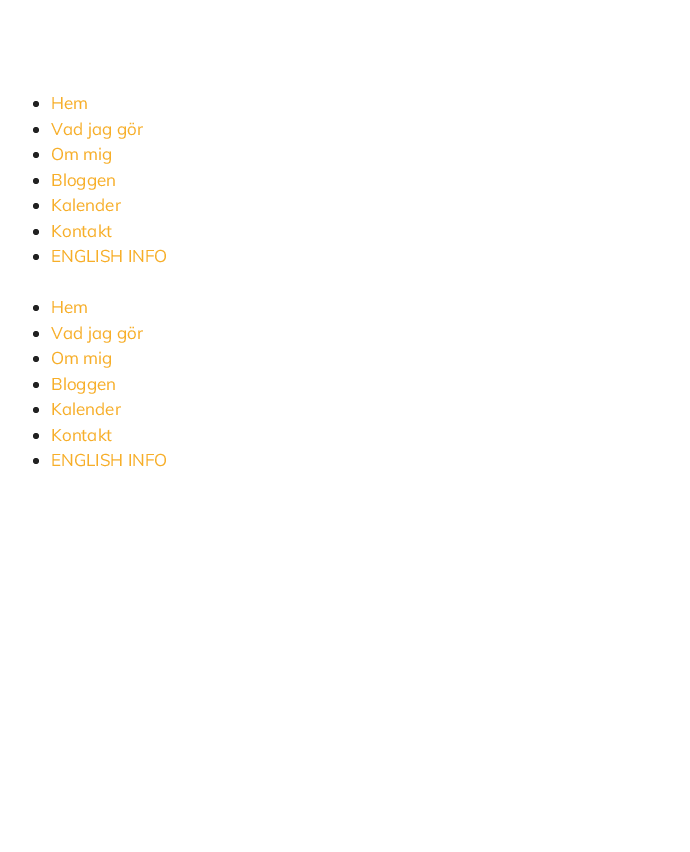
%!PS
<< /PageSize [690 852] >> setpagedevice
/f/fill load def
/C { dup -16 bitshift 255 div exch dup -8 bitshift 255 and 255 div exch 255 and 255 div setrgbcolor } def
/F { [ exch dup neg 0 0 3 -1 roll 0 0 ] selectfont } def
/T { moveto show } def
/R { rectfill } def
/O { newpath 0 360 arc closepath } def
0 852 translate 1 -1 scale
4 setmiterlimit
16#FFFFFF C
0 0 690 852 R
16#222222 C
36 104 3 O f
/Muli-Regular 17 F
16#F7AE28 C
(Hem) 51 109 T
16#222222 C
36 130 3 O f
16#F7AE28 C
(Vad jag gör) 51 135 T
16#222222 C
36 155 3 O f
16#F7AE28 C
(Om mig) 51 160 T
16#222222 C
36 181 3 O f
16#F7AE28 C
(Bloggen) 51 186 T
16#222222 C
36 206 3 O f
16#F7AE28 C
(Kalender) 51 211 T
16#222222 C
36 232 3 O f
16#F7AE28 C
(Kontakt) 51 237 T
16#222222 C
36 257 3 O f
16#F7AE28 C
(ENGLISH INFO) 51 262 T
16#222222 C
36 308 3 O f
16#F7AE28 C
(Hem) 51 313 T
16#222222 C
36 334 3 O f
16#F7AE28 C
(Vad jag gör) 51 339 T
16#222222 C
36 359 3 O f
16#F7AE28 C
(Om mig) 51 364 T
16#222222 C
36 385 3 O f
16#F7AE28 C
(Bloggen) 51 390 T
16#222222 C
36 410 3 O f
16#F7AE28 C
(Kalender) 51 415 T
16#222222 C
36 436 3 O f
16#F7AE28 C
(Kontakt) 51 441 T
16#222222 C
36 461 3 O f
16#F7AE28 C
(ENGLISH INFO) 51 466 T
showpage
